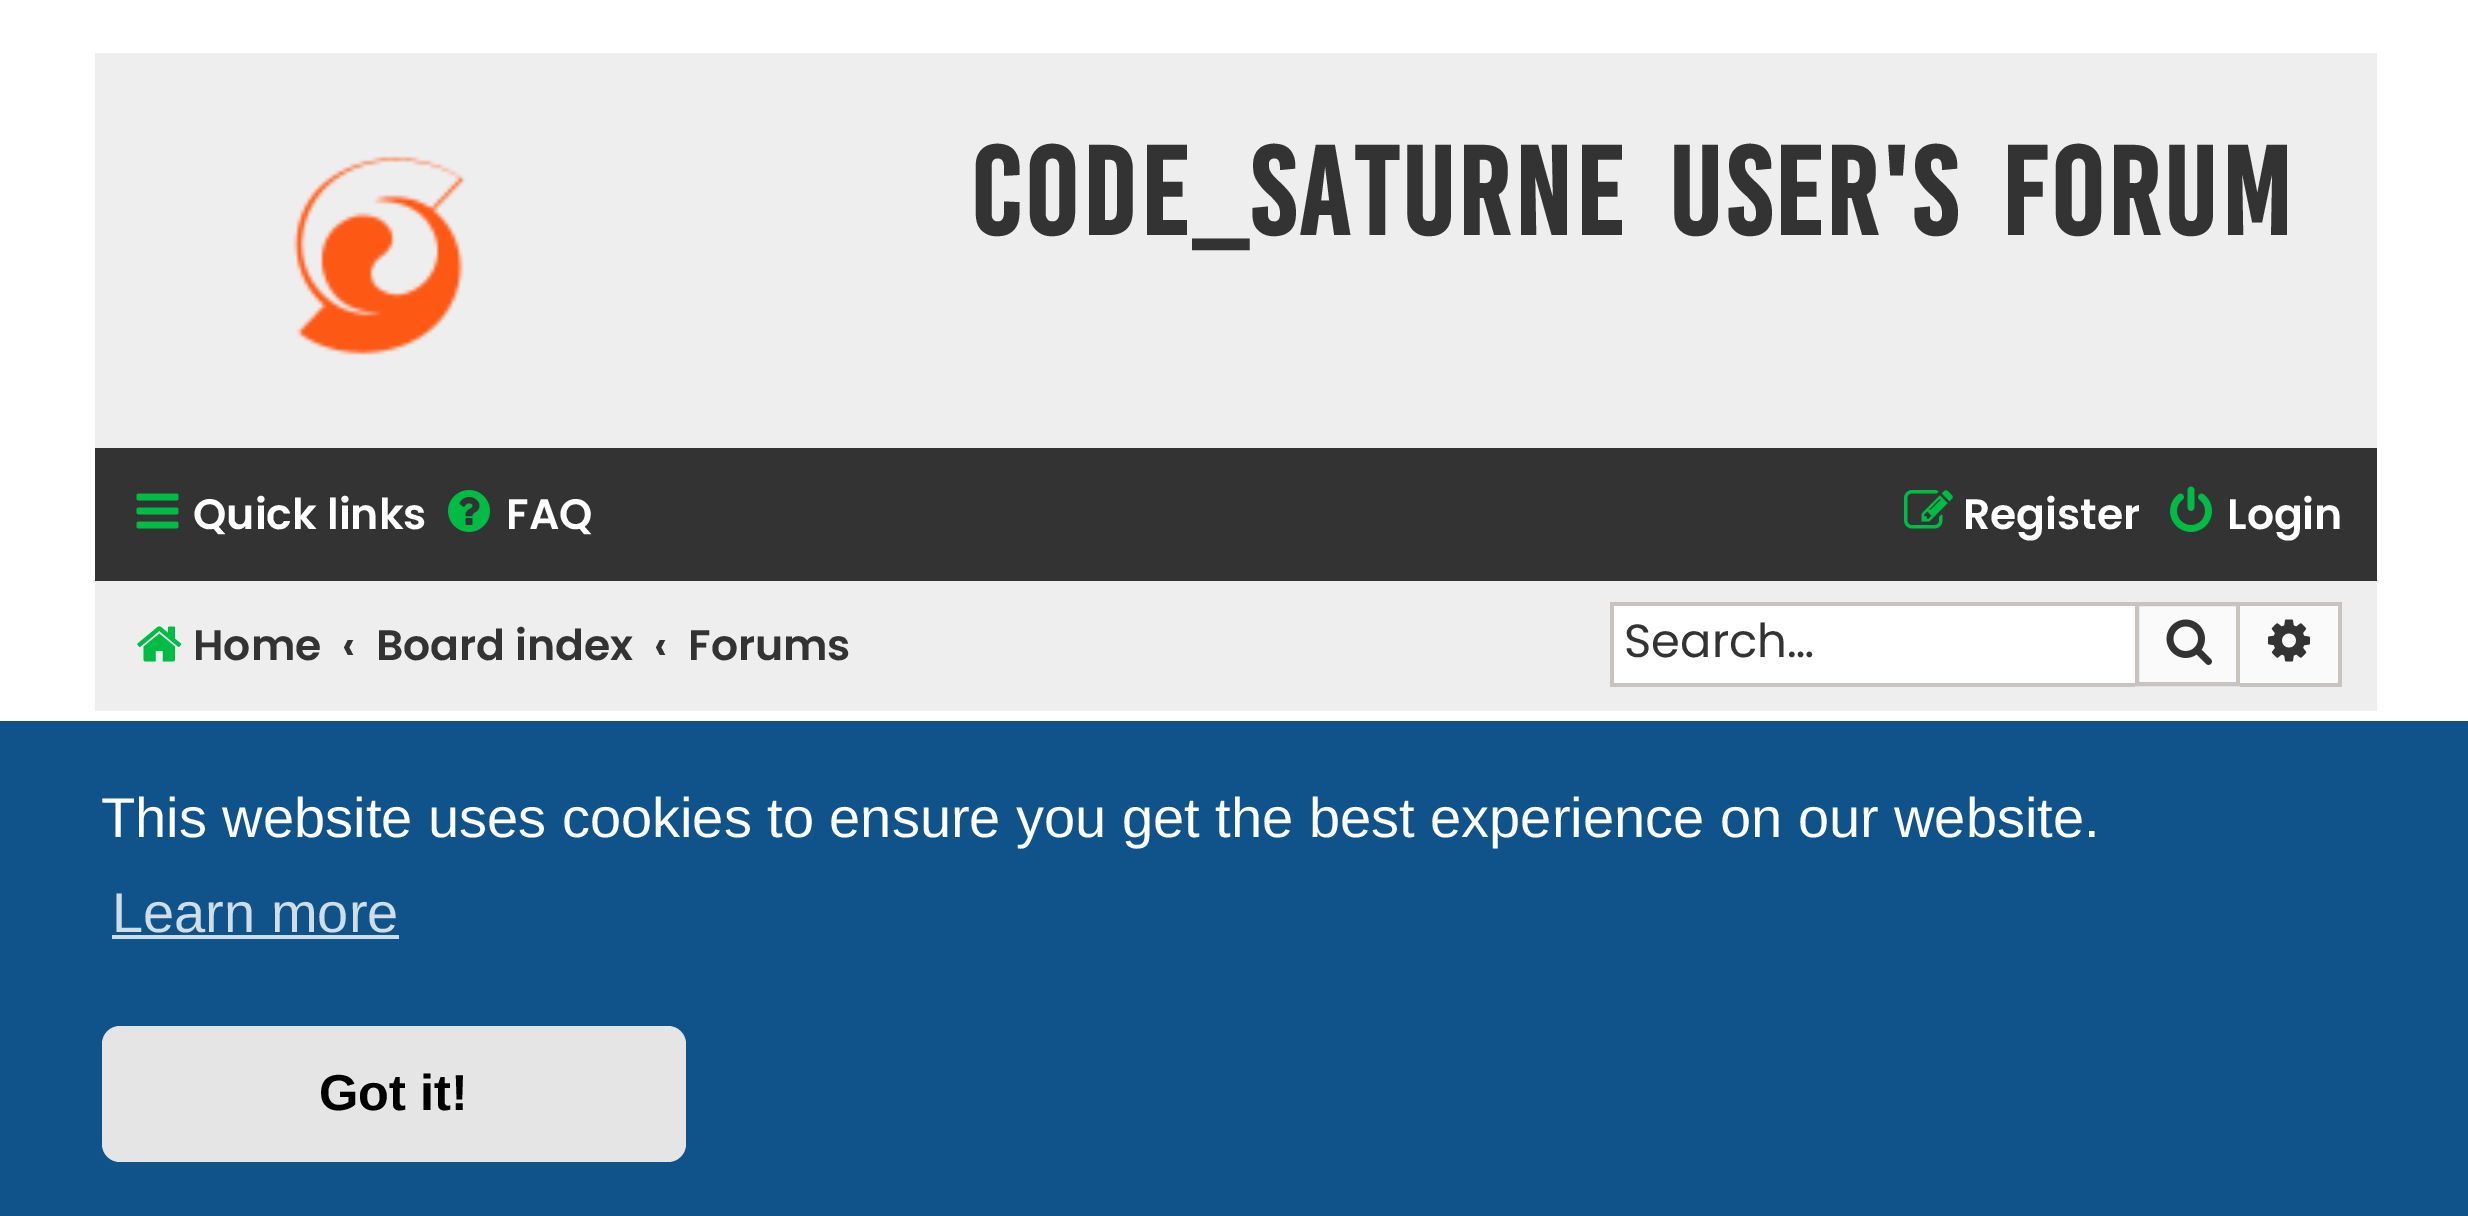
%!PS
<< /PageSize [2468 1216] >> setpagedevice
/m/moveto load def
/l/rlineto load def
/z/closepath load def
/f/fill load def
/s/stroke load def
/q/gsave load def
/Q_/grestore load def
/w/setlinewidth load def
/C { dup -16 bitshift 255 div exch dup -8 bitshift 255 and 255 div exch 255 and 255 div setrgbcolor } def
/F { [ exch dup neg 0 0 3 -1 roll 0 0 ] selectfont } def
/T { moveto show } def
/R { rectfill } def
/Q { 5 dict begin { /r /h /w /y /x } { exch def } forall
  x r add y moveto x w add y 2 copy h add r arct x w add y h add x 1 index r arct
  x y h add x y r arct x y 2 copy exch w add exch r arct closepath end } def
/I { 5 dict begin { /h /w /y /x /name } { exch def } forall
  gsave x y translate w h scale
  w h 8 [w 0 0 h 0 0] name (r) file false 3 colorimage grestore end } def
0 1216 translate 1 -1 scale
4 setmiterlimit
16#FFFFFF C
0 0 2468 1216 R
16#EEEEEE C
95 53 2282 395 R
(1.rgb) 293 156 173 199 I
/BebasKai-Bold 96.25 F
16#333333 C
970 235 m 14 0 32 3.5 0 (code_saturne User's Forum) awidthshow
95 448 2282 133 R
(2.rgb) 136 493 43 36 I
/Poppins-SemiBold 42.5 F
16#FFFFFF C
(Quick links) 193 529 T
(3.rgb) 448 490 42 42 I
(FAQ) 506 529 T
(4.rgb) 1904 490 49 39 I
(Register) 1963 529 T
(5.rgb) 2170 486 42 46 I
(Login) 2227 529 T
16#EEEEEE C
95 581 2282 130 R
(6.rgb) 137 626 45 36 I
16#333333 C
(Home) 193 660 T
(‹) 342 660 T
(Board index) 376 660 T
(‹) 654 660 T
(Forums) 688 660 T
16#FFFFFF C
1614 606 521 77 R
16#C7C3BF C
1610 602 525 4 R
1610 683 525 4 R
1610 602 4 84 R
/Poppins-Regular 46.5 F
16#333333 C
(Search…) 1624 657 T
16#FAFAFA C
2137 604 m 101 0 l 0 80 l -101 0 l z q f Q_
16#C7C3BF C
4 w
s
(7.rgb) 2166 619 46 46 I
16#FAFAFA C
2240 606 98 77 R
16#C7C3BF C
2240 602 102 4 R
2338 602 4 84 R
2240 683 102 4 R
(8.rgb) 2268 619 42 43 I
16#0F538A C
0 721 2468 495 R
/LiberationSans-Regular 56 F
16#FFFFFF C
(This website uses cookies to ensure you get the best experience on our website.) 101 837 T
16#CFDDE8 C
(Learn more) 112 932 T
112 935 287 4 R
16#E5E5E5 C
102 1026 584 136 18 Q f
/LiberationSans-Bold 50.5 F
16#000000 C
(Got it!) 319 1110 T
showpage
